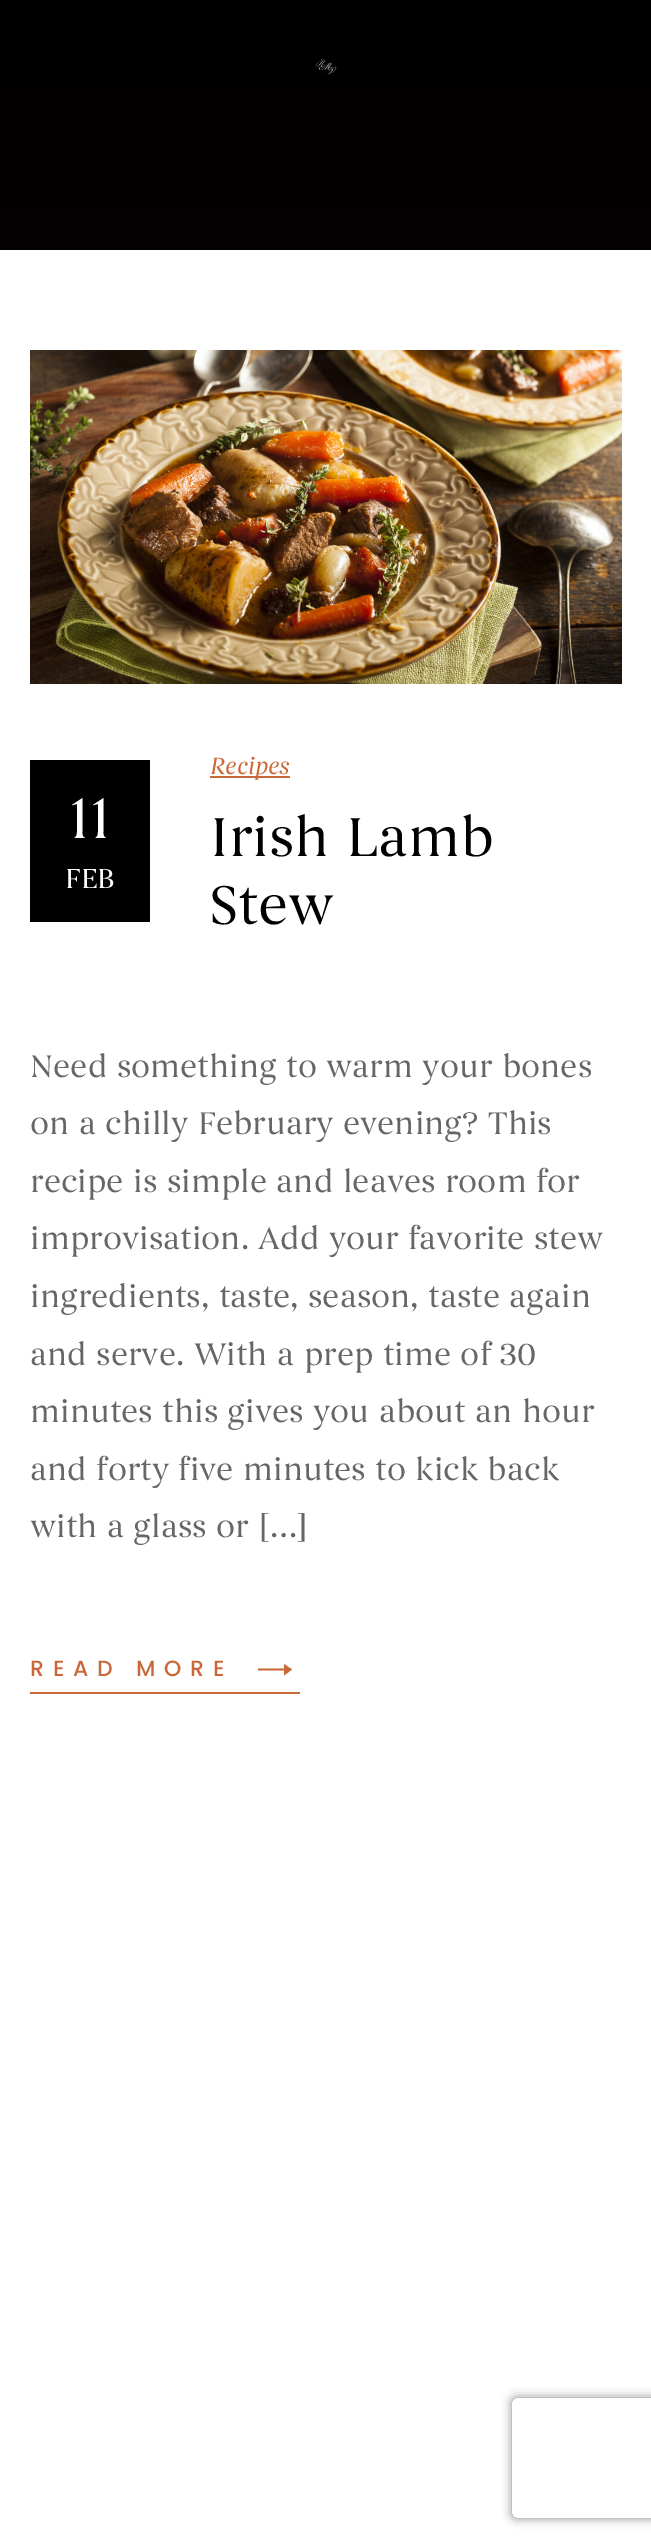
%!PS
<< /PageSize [651 2546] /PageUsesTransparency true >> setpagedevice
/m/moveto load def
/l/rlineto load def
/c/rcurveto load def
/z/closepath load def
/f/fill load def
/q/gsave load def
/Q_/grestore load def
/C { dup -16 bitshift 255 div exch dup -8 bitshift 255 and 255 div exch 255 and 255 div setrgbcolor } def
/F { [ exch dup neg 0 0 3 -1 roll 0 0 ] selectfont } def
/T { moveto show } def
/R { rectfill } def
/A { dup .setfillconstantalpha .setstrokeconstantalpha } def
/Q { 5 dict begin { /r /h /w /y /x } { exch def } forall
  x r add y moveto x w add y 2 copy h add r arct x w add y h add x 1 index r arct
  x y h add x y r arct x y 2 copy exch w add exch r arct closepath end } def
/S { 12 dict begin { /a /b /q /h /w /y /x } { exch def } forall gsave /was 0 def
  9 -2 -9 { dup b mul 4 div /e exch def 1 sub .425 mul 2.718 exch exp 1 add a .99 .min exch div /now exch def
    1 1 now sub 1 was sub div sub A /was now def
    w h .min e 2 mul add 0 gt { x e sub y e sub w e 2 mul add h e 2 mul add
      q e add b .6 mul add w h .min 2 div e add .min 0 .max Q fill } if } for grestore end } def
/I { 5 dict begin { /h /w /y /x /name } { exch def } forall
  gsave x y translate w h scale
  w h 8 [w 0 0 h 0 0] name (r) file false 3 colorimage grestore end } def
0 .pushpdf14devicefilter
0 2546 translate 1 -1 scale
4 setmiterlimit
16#FFFFFF C
0 0 651 2546 R
q 0 0 m 651 0 l 0 250 l -651 0 l z clip newpath
<< /ShadingType 2 /ColorSpace /DeviceRGB /Coords [326 0 326 250] /Extend [true true] /Function << /FunctionType 2 /Domain [0 1] /C0 [0 0 0] /C1 [.024 0 .008] /N 1 >> >> shfill Q_
(1.rgb) 315 59 23 16 I
(2.rgb) 30 350 592 334 I
16#C96838 C
210 776 80 2 R
/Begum-Italic 24 F
(Recipes) 210 774 T
16#000000 C
30 760 120 162 R
/Begum-Regular 60 F
16#FFFFFF C
(11) 69 838 T
/Begum-Regular 28 F
(FEB) 65 888 T
/Begum-Regular 56 F
16#000000 C
(Irish Lamb) 210 856 T
(Stew) 210 924 T
/Begum-Regular 32 F
16#666666 C
(Need something to warm your bones) 30 1077 T
(on a chilly February evening? This) 30 1134 T
(recipe is simple and leaves room for) 30 1192 T
(improvisation. Add your favorite stew) 30 1249 T
(ingredients, taste, season, taste again) 30 1307 T
(and serve. With a prep time of 30) 30 1365 T
(minutes this gives you about an hour) 30 1422 T
(and forty five minutes to kick back) 30 1480 T
(with a glass or […]) 30 1537 T
/Poppins-Medium 22 F
16#C96838 C
30 1676 m 8.75 0 (READ MORE) ashow
284 1664 m 0 4.5 l -26 0 l 0 2 l 26 0 l 0 5 l 8 -6 l z f
30 1692 270 2 R
q
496 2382 m 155 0 l 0 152 l -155 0 l z 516 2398 m 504 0 l 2 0 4 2 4 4 c 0 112 l 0 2 -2 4 -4 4 c -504 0 l -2 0 -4 -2 -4 -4 c 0 -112 l 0 -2 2 -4 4 -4 c z eoclip newpath
16#808080 C
512 2398 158 120 4 5 1 S
Q_
.poppdf14devicefilter showpage
